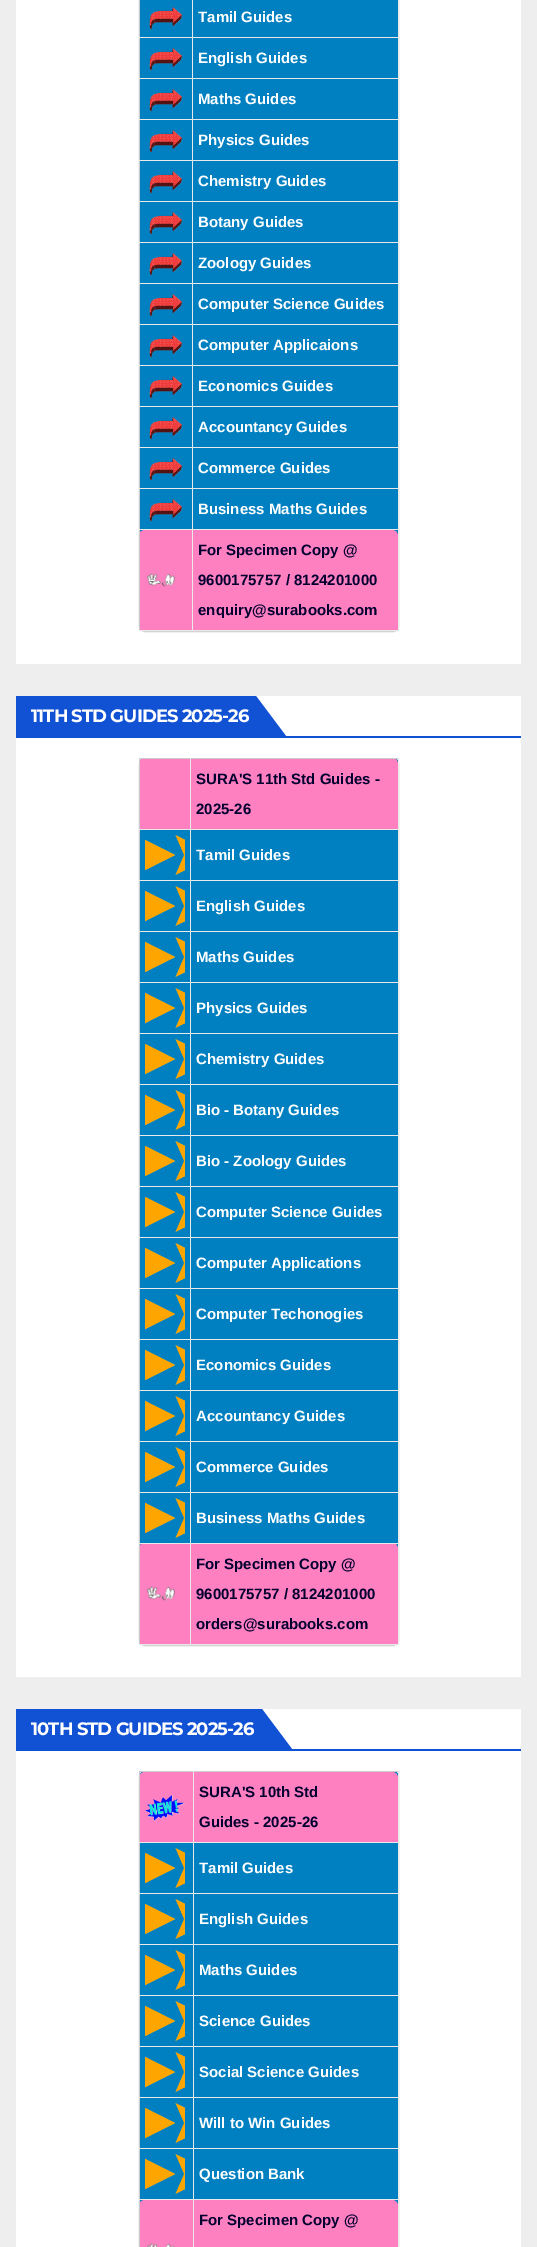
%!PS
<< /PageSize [537 2247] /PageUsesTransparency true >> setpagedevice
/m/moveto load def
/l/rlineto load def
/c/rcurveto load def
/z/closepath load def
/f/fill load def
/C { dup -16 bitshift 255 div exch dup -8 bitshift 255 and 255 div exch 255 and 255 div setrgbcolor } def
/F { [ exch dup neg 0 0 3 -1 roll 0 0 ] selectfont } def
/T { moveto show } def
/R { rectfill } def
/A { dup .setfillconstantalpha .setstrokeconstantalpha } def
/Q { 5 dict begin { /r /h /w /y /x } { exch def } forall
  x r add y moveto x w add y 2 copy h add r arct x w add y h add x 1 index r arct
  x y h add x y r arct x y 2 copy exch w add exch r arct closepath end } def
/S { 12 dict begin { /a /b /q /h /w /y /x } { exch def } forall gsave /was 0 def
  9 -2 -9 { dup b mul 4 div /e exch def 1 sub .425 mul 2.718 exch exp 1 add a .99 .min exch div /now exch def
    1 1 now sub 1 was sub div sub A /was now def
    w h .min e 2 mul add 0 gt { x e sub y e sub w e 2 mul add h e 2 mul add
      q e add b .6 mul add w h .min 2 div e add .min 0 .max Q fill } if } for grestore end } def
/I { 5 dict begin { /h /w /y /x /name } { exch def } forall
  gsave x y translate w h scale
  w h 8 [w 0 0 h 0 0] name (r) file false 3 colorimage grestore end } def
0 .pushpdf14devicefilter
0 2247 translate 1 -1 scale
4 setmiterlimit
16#EEEEEE C
0 0 537 2247 R
16#FFFFFF C
16 0 505 664 R
16#CCCCCC C
139 -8 260 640 6 .5 1 S
16#0080C0 C
140 0 258 536 R
16#FF80C0 C
145 530 m 47 0 l 0 101 l -53 0 l 0 -95 l 0 -3.5 2.5 -6 6 -6 c z f
16#CCCCCC C
139 0 1 631 R
16#FF80C0 C
192 530 m 200 0 l 3.5 0 6 2.5 6 6 c 0 95 l -206 0 l z f
16#E9E9E9 C
398 0 1 631 R
192 630 207 1 R
192 529 1 102 R
192 529 207 1 R
192 488 1 42 R
192 488 207 1 R
192 447 1 42 R
192 447 207 1 R
192 406 1 42 R
192 406 207 1 R
192 365 1 42 R
192 365 207 1 R
192 324 1 42 R
192 324 207 1 R
192 283 1 42 R
192 283 207 1 R
192 242 1 42 R
192 242 207 1 R
192 201 1 42 R
192 201 207 1 R
192 160 1 42 R
192 160 207 1 R
192 119 1 42 R
192 119 207 1 R
192 78 1 42 R
192 78 207 1 R
192 37 1 42 R
192 37 207 1 R
192 0 1 38 R
139 37 54 1 R
(1.rgb) 149 7 33 23 I
/LiberationSans-Bold 15 F
16#FFFFFF C
(Tamil Guides) 198 22 T
16#E9E9E9 C
139 78 54 1 R
(1.rgb) 149 48 33 23 I
16#FFFFFF C
(English Guides) 198 63 T
16#E9E9E9 C
139 119 54 1 R
(1.rgb) 149 89 33 23 I
16#FFFFFF C
(Maths Guides) 198 104 T
16#E9E9E9 C
139 160 54 1 R
(1.rgb) 149 130 33 23 I
16#FFFFFF C
(Physics Guides) 198 145 T
16#E9E9E9 C
139 201 54 1 R
(1.rgb) 149 171 33 23 I
16#FFFFFF C
(Chemistry Guides) 198 186 T
16#E9E9E9 C
139 242 54 1 R
(1.rgb) 149 212 33 23 I
16#FFFFFF C
(Botany Guides) 198 227 T
16#E9E9E9 C
139 283 54 1 R
(1.rgb) 149 253 33 23 I
16#FFFFFF C
(Zoology Guides) 198 268 T
16#E9E9E9 C
139 324 54 1 R
(1.rgb) 149 294 33 23 I
16#FFFFFF C
(Computer Science Guides) 198 309 T
16#E9E9E9 C
139 365 54 1 R
(1.rgb) 149 335 33 23 I
16#FFFFFF C
(Computer Applicaions) 198 350 T
16#E9E9E9 C
139 406 54 1 R
(1.rgb) 149 376 33 23 I
16#FFFFFF C
(Economics Guides) 198 391 T
16#E9E9E9 C
139 447 54 1 R
(1.rgb) 149 417 33 23 I
16#FFFFFF C
(Accountancy Guides) 198 432 T
16#E9E9E9 C
139 488 54 1 R
(1.rgb) 149 458 33 23 I
16#FFFFFF C
(Commerce Guides) 198 473 T
16#E9E9E9 C
139 529 54 1 R
(1.rgb) 149 499 33 23 I
16#FFFFFF C
(Business Maths Guides) 198 514 T
16#E9E9E9 C
139 630 54 1 R
(2.rgb) 146 573 29 14 I
16#01012F C
(For Specimen Copy @) 198 555 T
(9600175757 / 8124201000) 198 585 T
(enquiry@surabooks.com) 198 615 T
16#FFFFFF C
16 696 505 981 R
16#1151D3 C
16 736 505 2 R
16 696 240 40 R
/Montserrat-Bold 18 F
16#FFFFFF C
31 722 m -.9 0 (11TH STD GUIDES 2025-26) ashow
16#1151D3 C
256 736 m 0 -40 l 30 40 l z f
16#CCCCCC C
139 759 260 887 6 .5 1 S
16#0080C0 C
139 758 260 887 6 Q f
16#FF80C0 C
145 758 m 45 0 l 0 71 l -51 0 l 0 -65 l 0 -3.5 2.5 -6 6 -6 c z f
190 758 m 202 0 l 3.5 0 6 2.5 6 6 c 0 65 l -208 0 l z f
16#CCCCCC C
139 758 260 1 R
16#FF80C0 C
145 1543 m 45 0 l 0 101 l -51 0 l 0 -95 l 0 -3.5 2.5 -6 6 -6 c z f
16#CCCCCC C
139 758 1 887 R
16#FF80C0 C
190 1543 m 202 0 l 3.5 0 6 2.5 6 6 c 0 95 l -208 0 l z f
16#E9E9E9 C
398 758 1 887 R
190 1644 209 1 R
190 1543 1 102 R
190 1543 209 1 R
190 1492 1 52 R
190 1492 209 1 R
190 1441 1 52 R
190 1441 209 1 R
190 1390 1 52 R
190 1390 209 1 R
190 1339 1 52 R
190 1339 209 1 R
190 1288 1 52 R
190 1288 209 1 R
190 1237 1 52 R
190 1237 209 1 R
190 1186 1 52 R
190 1186 209 1 R
190 1135 1 52 R
190 1135 209 1 R
190 1084 1 52 R
190 1084 209 1 R
190 1033 1 52 R
190 1033 209 1 R
190 982 1 52 R
190 982 209 1 R
190 931 1 52 R
190 931 209 1 R
190 880 1 52 R
190 880 209 1 R
190 829 1 52 R
190 829 209 1 R
190 758 1 72 R
139 829 52 1 R
/LiberationSans-Bold 15 F
16#01012F C
(SURA'S 11th Std Guides -) 196 784 T
(2025-26) 196 814 T
16#E9E9E9 C
139 880 52 1 R
(3.rgb) 145 835 40 40 I
16#FFFFFF C
(Tamil Guides) 196 860 T
16#E9E9E9 C
139 931 52 1 R
(4.rgb) 145 886 40 40 I
16#FFFFFF C
(English Guides) 196 911 T
16#E9E9E9 C
139 982 52 1 R
(4.rgb) 145 937 40 40 I
16#FFFFFF C
(Maths Guides) 196 962 T
16#E9E9E9 C
139 1033 52 1 R
(4.rgb) 145 988 40 40 I
16#FFFFFF C
(Physics Guides) 196 1013 T
16#E9E9E9 C
139 1084 52 1 R
(5.rgb) 145 1039 40 40 I
16#FFFFFF C
(Chemistry Guides) 196 1064 T
16#E9E9E9 C
139 1135 52 1 R
(6.rgb) 145 1090 40 40 I
16#FFFFFF C
(Bio - Botany Guides) 196 1115 T
16#E9E9E9 C
139 1186 52 1 R
(4.rgb) 145 1141 40 40 I
16#FFFFFF C
(Bio - Zoology Guides) 196 1166 T
16#E9E9E9 C
139 1237 52 1 R
(4.rgb) 145 1192 40 40 I
16#FFFFFF C
(Computer Science Guides) 196 1217 T
16#E9E9E9 C
139 1288 52 1 R
(4.rgb) 145 1243 40 40 I
16#FFFFFF C
(Computer Applications) 196 1268 T
16#E9E9E9 C
139 1339 52 1 R
(7.rgb) 145 1294 40 40 I
16#FFFFFF C
(Computer Techonogies) 196 1319 T
16#E9E9E9 C
139 1390 52 1 R
(8.rgb) 145 1345 40 40 I
16#FFFFFF C
(Economics Guides) 196 1370 T
16#E9E9E9 C
139 1441 52 1 R
(4.rgb) 145 1396 40 40 I
16#FFFFFF C
(Accountancy Guides) 196 1421 T
16#E9E9E9 C
139 1492 52 1 R
(4.rgb) 145 1447 40 40 I
16#FFFFFF C
(Commerce Guides) 196 1472 T
16#E9E9E9 C
139 1543 52 1 R
(4.rgb) 145 1498 40 40 I
16#FFFFFF C
(Business Maths Guides) 196 1523 T
16#E9E9E9 C
139 1644 52 1 R
(9.rgb) 146 1586 29 15 I
16#01012F C
(For Specimen Copy @) 196 1569 T
(9600175757 / 8124201000) 196 1599 T
(orders@surabooks.com) 196 1629 T
16#FFFFFF C
16 1709 505 538 R
16#1151D3 C
16 1749 505 2 R
16 1709 246 40 R
/Montserrat-Bold 18 F
16#FFFFFF C
31 1735 m -.9 0 (10TH STD GUIDES 2025-26) ashow
16#1151D3 C
262 1749 m 0 -40 l 30 40 l z f
16#CCCCCC C
139 1772 260 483 6 .5 1 S
16#0080C0 C
139 1771 260 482 6 Q f
16#CCCCCC C
139 1771 260 1 R
16#FF80C0 C
145 1772 m 49 0 l 0 71 l -55 0 l 0 -65 l 0 -3.5 2.5 -6 6 -6 c z f
145 2200 m 49 0 l 0 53 l -55 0 l 0 -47 l 0 -3.5 2.5 -6 6 -6 c z f
16#CCCCCC C
139 1771 1 476 R
16#FF80C0 C
194 1772 m 198 0 l 3.5 0 6 2.5 6 6 c 0 65 l -204 0 l z f
16#E9E9E9 C
193 2199 1 48 R
398 1771 1 476 R
193 2199 206 1 R
193 2148 1 52 R
193 2148 206 1 R
193 2097 1 52 R
193 2097 206 1 R
193 2046 1 52 R
193 2046 206 1 R
193 1995 1 52 R
193 1995 206 1 R
193 1944 1 52 R
193 1944 206 1 R
193 1893 1 52 R
193 1893 206 1 R
193 1842 1 52 R
193 1842 206 1 R
193 1771 1 72 R
139 1842 55 1 R
(10.rgb) 145 1795 40 26 I
/LiberationSans-Bold 15 F
16#01012F C
(SURA'S 10th Std) 199 1797 T
(Guides - 2025-26) 199 1827 T
16#E9E9E9 C
139 1893 55 1 R
(11.rgb) 145 1848 40 40 I
16#FFFFFF C
(Tamil Guides) 199 1873 T
16#E9E9E9 C
139 1944 55 1 R
(4.rgb) 145 1899 40 40 I
16#FFFFFF C
(English Guides) 199 1924 T
16#E9E9E9 C
139 1995 55 1 R
(4.rgb) 145 1950 40 40 I
16#FFFFFF C
(Maths Guides) 199 1975 T
16#E9E9E9 C
139 2046 55 1 R
(4.rgb) 145 2001 40 40 I
16#FFFFFF C
(Science Guides) 199 2026 T
16#E9E9E9 C
139 2097 55 1 R
(12.rgb) 145 2052 40 40 I
16#FFFFFF C
(Social Science Guides) 199 2077 T
16#E9E9E9 C
139 2148 55 1 R
(13.rgb) 145 2103 40 40 I
16#FFFFFF C
(Will to Win Guides) 199 2128 T
16#E9E9E9 C
139 2199 55 1 R
(4.rgb) 145 2154 40 40 I
16#FFFFFF C
(Question Bank) 199 2179 T
(14.rgb) 146 2243 29 4 I
16#FF80C0 C
194 2200 m 198 0 l 3.5 0 6 2.5 6 6 c 0 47 l -204 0 l z f
16#01012F C
(For Specimen Copy @) 199 2225 T
.poppdf14devicefilter showpage
